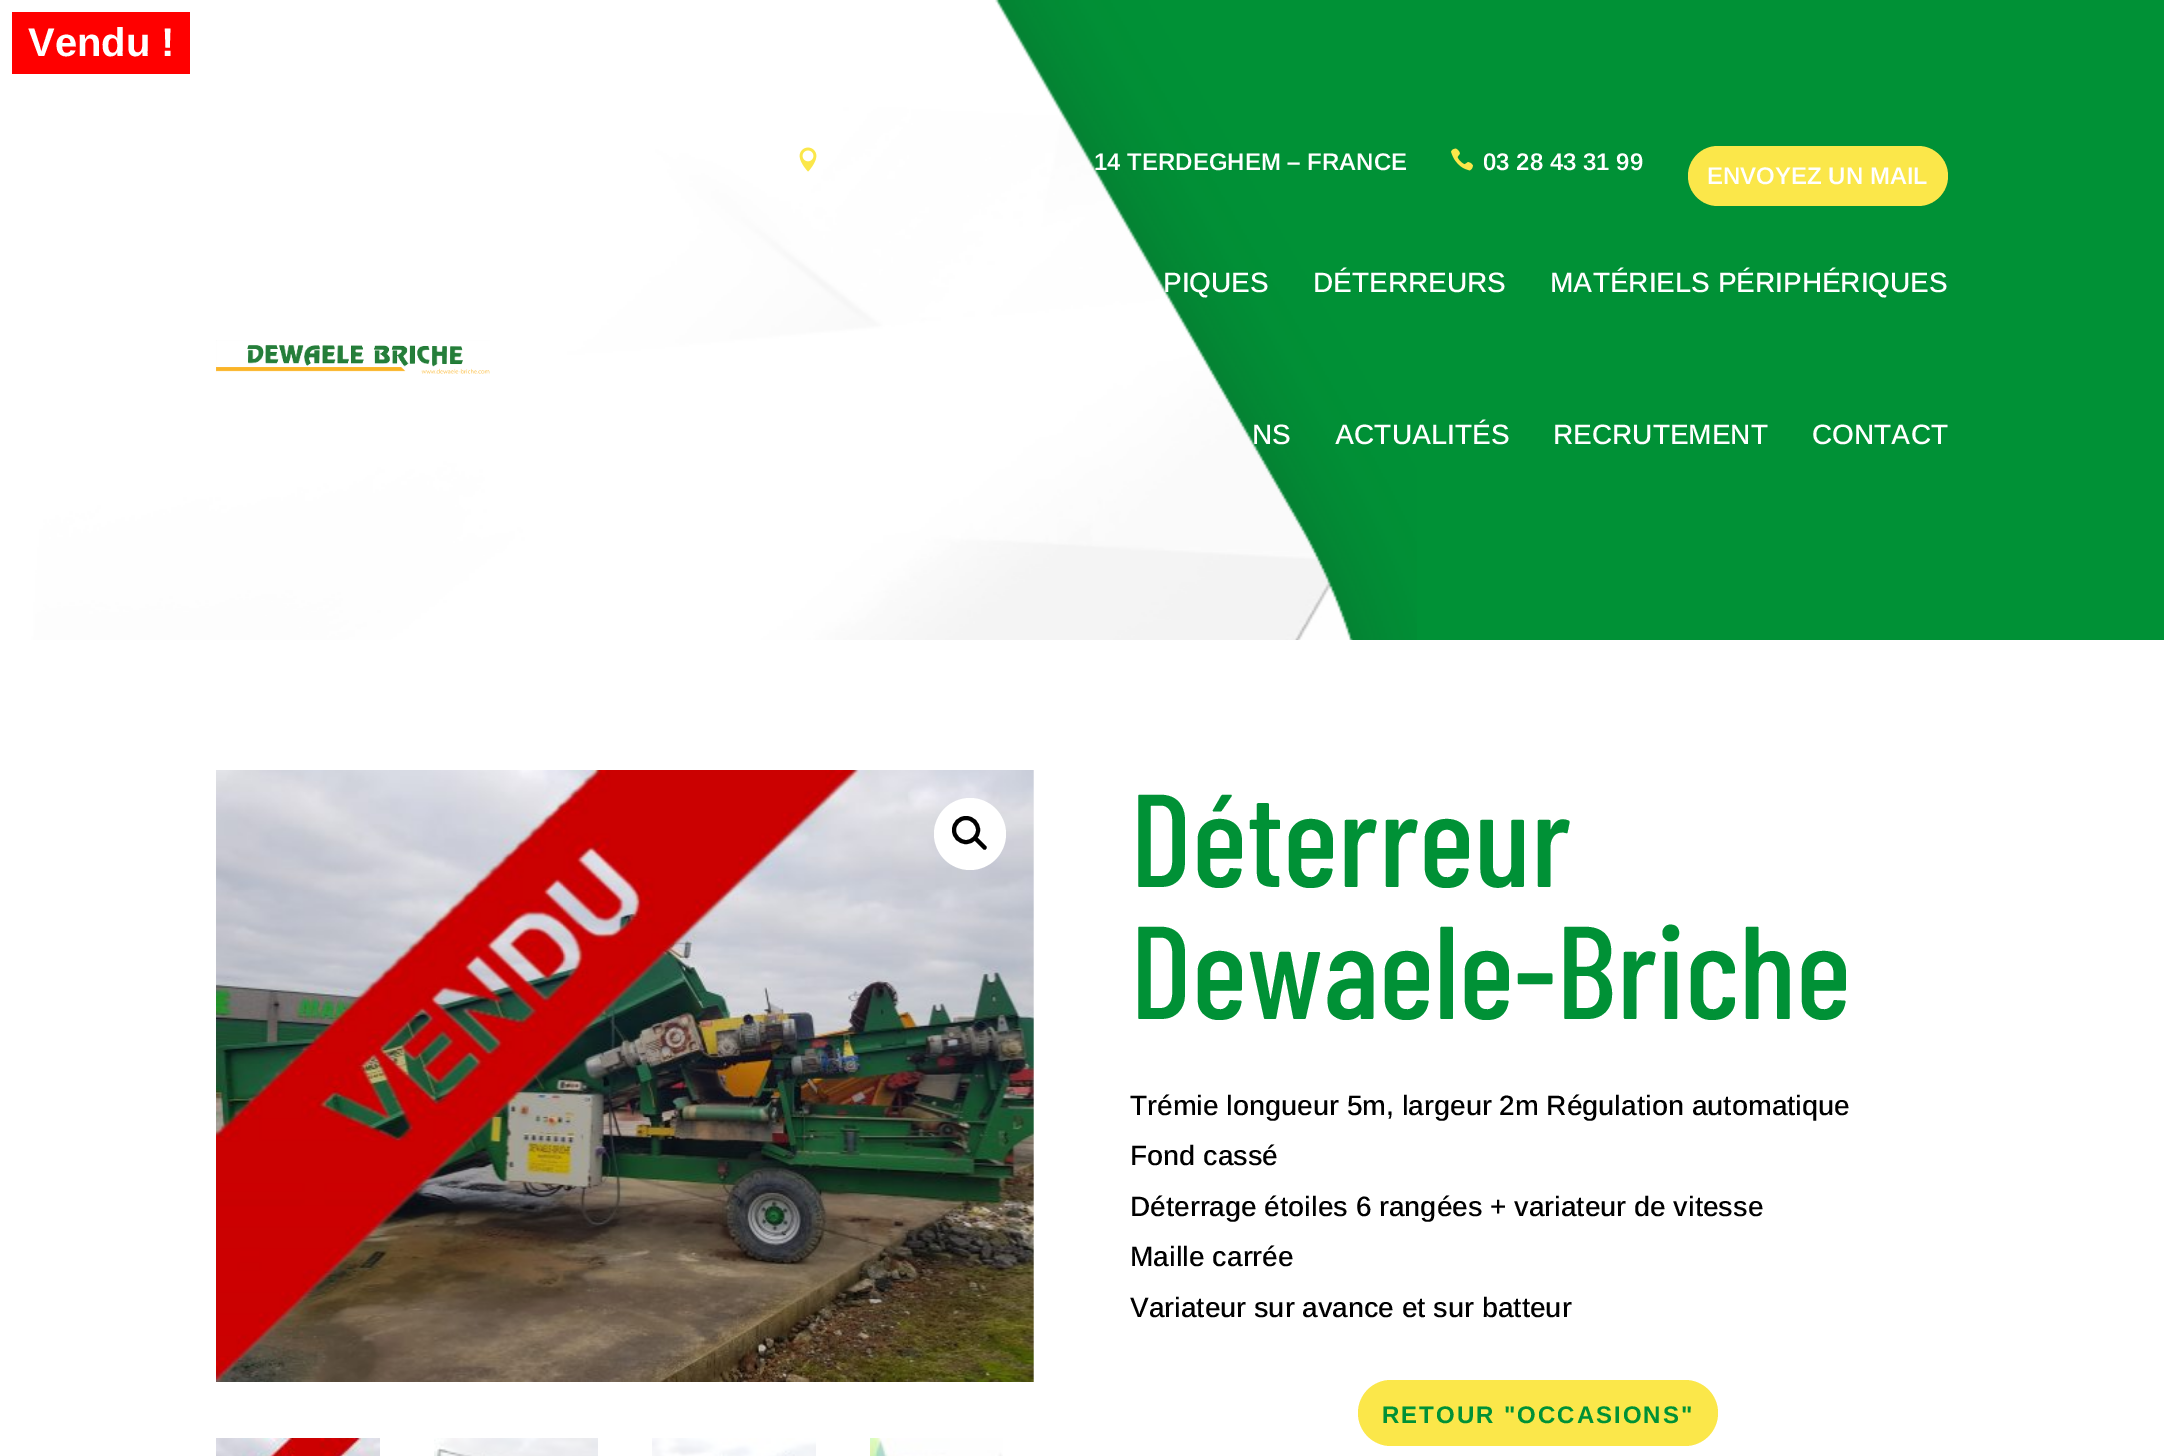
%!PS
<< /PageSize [2164 1456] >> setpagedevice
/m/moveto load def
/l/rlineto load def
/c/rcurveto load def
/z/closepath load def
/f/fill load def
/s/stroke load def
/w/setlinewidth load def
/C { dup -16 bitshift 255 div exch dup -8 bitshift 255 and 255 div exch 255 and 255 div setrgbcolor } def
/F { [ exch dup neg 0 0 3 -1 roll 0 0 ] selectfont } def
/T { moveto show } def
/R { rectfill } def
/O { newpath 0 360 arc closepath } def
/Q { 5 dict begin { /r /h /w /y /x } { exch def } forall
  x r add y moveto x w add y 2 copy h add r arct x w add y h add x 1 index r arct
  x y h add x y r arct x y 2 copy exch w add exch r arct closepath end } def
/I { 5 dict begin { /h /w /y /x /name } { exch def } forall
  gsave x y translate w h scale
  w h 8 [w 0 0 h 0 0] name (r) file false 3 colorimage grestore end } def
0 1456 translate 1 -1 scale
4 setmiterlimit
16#FFFFFF C
0 0 2164 1456 R
16#009136 C
995 0 1169 640 R
(6.rgb) 0 0 1417 640 I
16#FF0000 C
12 12 178 62 R
/Arimo-Bold 40 F
16#FFFFFF C
(Vendu !) 28 56 T
(1.rgb) 216 770 818 612 I
970 834 36 O f
16#000000 C
4 w
966 830 12 O s
974.5 837.5 m 1 -.5 2.5 -.5 3 0 c 8.5 8.5 l 1 1 1 2 0 3 c -.5 1 -2 1 -3 0 c -8.5 -8.5 l -.5 -1 -.5 -2 0 -3 c z f
(2.rgb) 216 1438 164 18 I
(3.rgb) 434 1438 164 18 I
(4.rgb) 652 1438 164 18 I
(5.rgb) 870 1438 133 18 I
/BarlowCondensed-Medium 132 F
16#009136 C
(Déterreur) 1130 887 T
(Dewaele-Briche) 1130 1019 T
/Arimo-Medium 28 F
16#000000 C
(Trémie longueur 5m, largeur 2m Régulation automatique) 1130 1115 T
(Fond cassé) 1130 1165 T
(Déterrage étoiles 6 rangées + variateur de vitesse) 1130 1216 T
(Maille carrée) 1130 1266 T
(Variateur sur avance et sur batteur) 1130 1317 T
16#FBE74A C
1358 1380 360 66 33 Q f
/Arimo-Bold 24 F
16#009136 C
1382 1423 m 2 0 (RETOUR "OCCASIONS") ashow
(7.rgb) 799 147 18 25 I
/Arimo-SemiBold 24 F
16#FFFFFF C
(14 TERDEGHEM – FRANCE) 1094 170 T
(8.rgb) 1451 148 22 23 I
(03 28 43 31 99) 1483 170 T
16#FBE74A C
1688 146 260 60 30 Q f
16#FFFFFF C
(ENVOYEZ UN MAIL) 1707 184 T
(9.rgb) 216 340 274 34 I
/Arimo-Medium 28 F
(PIQUES) 1163 292 T
(DÉTERREURS) 1313 292 T
(MATÉRIELS PÉRIPHÉRIQUES) 1550 292 T
(NS) 1252 444 T
(ACTUALITÉS) 1335 444 T
(RECRUTEMENT) 1553 444 T
(CONTACT) 1812 444 T
showpage
